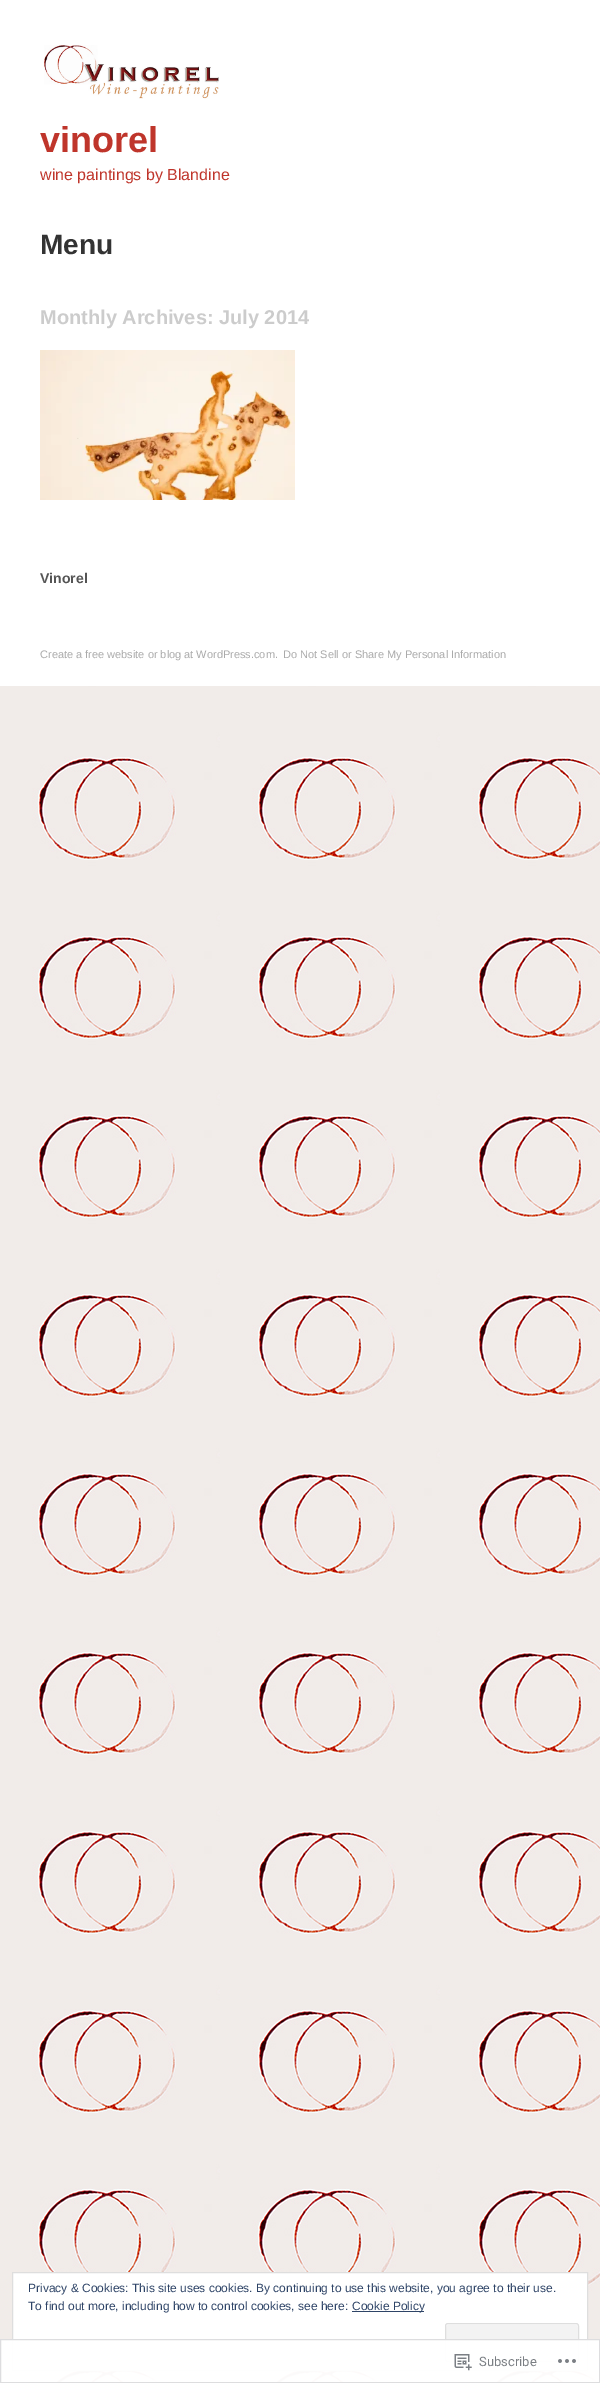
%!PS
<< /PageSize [600 2383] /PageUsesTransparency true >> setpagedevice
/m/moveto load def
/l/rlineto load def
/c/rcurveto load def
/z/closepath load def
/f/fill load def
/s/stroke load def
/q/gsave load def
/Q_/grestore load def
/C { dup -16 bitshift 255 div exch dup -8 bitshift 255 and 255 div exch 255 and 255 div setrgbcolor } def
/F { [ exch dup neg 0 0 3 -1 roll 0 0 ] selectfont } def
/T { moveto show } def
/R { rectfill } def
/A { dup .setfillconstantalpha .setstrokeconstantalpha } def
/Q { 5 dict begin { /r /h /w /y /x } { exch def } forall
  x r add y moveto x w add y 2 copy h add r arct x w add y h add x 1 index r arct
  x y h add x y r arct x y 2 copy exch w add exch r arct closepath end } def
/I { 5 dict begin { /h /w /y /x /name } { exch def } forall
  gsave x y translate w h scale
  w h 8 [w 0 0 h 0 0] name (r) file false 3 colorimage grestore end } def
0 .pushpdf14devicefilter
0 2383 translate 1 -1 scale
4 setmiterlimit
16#FFFFFF C
0 0 600 2383 R
(1.rgb) 0 686 600 1697 I
(2.rgb) 44 45 175 54 I
/LiberationSans-Bold 36 F
16#BF352B C
(vinorel) 40 152 T
/LiberationSans-Regular 16 F
(wine paintings by Blandine) 40 180 T
/LiberationSans-Bold 28 F
16#333333 C
(Menu) 40 254 T
/LiberationSans-Bold 20 F
16#CCCCCC C
(Monthly Archives: July 2014) 40 324 T
(3.rgb) 40 350 255 150 I
/LiberationSans-Bold 14 F
16#555555 C
(Vinorel) 40 583 T
/LiberationSans-Regular 11 F
16#AAAAAA C
(Create a free website or blog at WordPress.com.) 40 658 T
(Do Not Sell or Share My Personal Information) 283 658 T
16#FFFFFF C
12.5 2272.5 m 575 0 l 0 98 l -575 0 l z q f Q_
16#DEDEDE C
s
/LiberationSans-Regular 12 F
16#2E4467 C
(Privacy & Cookies: This site uses cookies. By continuing to use this website, you agree to their use.) 28 2292 T
(To find out more, including how to control cookies, see here:) 28 2310 T
352 2311 72 1 R
(Cookie Policy) 352 2310 T
16#F3F3F3 C
445 2323 134 39 3 Q f
16#F9F9F9 C
448 2325 m 128 0 l 1 0 2 1 2 2 c 0 -1 0 -3 -2 -3 c -128 0 l -2 0 -2 2 -2 3 c 0 -1 1 -2 2 -2 c z f
16#DEDEDE C
445.5 2323.5 133 38 2.5 Q s
0.98 A
16#FFFFFF C
0 2339 600 44 R
16#DCDCDE C
.5 2339.5 599 43 rectstroke
1 A
(4.rgb) 454 2354 18 17 I
/Roboto-Regular 13 F
16#7B7F84 C
(Subscribe) 479 2366 T
(5.rgb) 558 2359 18 4 I
.poppdf14devicefilter showpage
